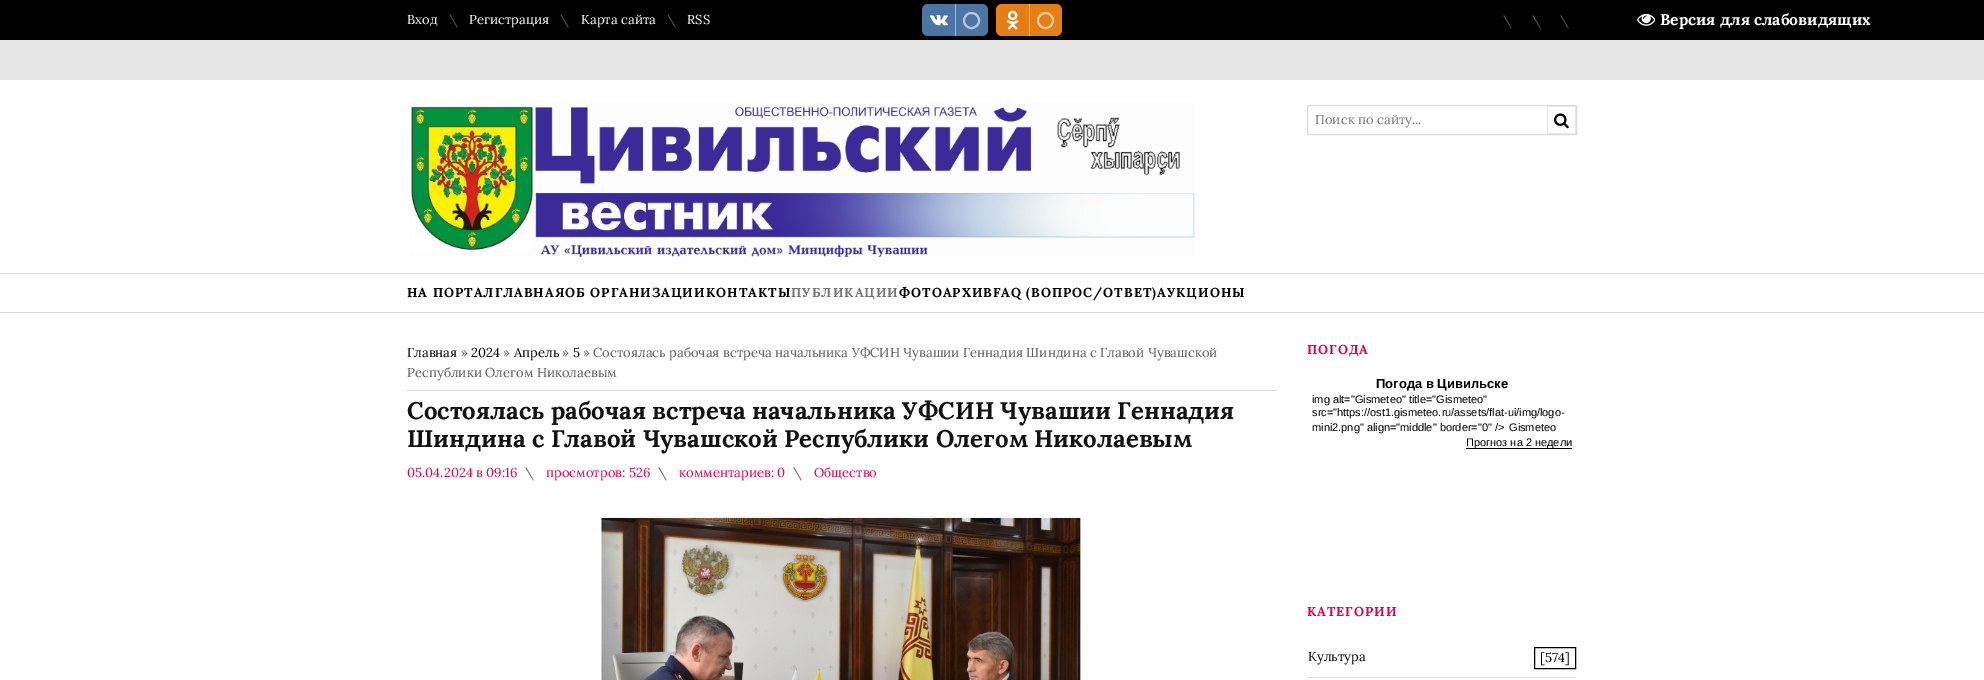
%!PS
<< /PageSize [1984 680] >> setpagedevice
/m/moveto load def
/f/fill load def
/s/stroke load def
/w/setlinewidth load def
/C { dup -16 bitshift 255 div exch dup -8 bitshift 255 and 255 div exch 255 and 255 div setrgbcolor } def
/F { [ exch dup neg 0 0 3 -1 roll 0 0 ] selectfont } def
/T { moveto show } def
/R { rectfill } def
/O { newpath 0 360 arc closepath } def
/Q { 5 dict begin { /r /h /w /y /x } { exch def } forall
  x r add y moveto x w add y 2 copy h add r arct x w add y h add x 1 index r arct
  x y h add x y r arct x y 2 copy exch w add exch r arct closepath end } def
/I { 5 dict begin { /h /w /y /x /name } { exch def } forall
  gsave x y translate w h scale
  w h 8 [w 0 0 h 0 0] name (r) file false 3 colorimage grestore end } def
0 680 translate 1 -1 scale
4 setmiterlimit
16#FFFFFF C
0 0 1984 680 R
16#000000 C
0 0 1984 40 R
16#4D75A3 C
922 4 66 32 6 Q f
(1.rgb) 930 15 18 11 I
16#A6BAD1 C
955 4 1 32 R
16#B8C8DA C
2 w
971.5 20.5 7.5 O s
16#E67E17 C
996 4 66 32 6 Q f
(2.rgb) 1007 10 12 20 I
16#F3BF8B C
1029 4 1 32 R
16#F5CBA2 C
1045.5 20.5 7.5 O s
/Lora-Regular 13 F
16#FFFFFF C
(Вход) 407 24 T
16#5C5C5C C
(\\) 449 24 T
16#FFFFFF C
(Регистрация) 469 24 T
16#5C5C5C C
(\\) 560 24 T
16#FFFFFF C
(Карта сайта) 581 24 T
16#5C5C5C C
(\\) 667 24 T
16#FFFFFF C
(RSS) 687 24 T
16#5C5C5C C
(\\) 1503 25 T
(\\) 1532 25 T
(\\) 1560 25 T
16#E6E6E6 C
0 40 1984 40 R
(3.rgb) 410 101 785 156 I
16#DCDCDC C
1 w
1307.5 105.5 269 29 rectstroke
16#757575 C
(Поиск по сайту...) 1315 124 T
16#DCDCDC C
.6 w
1547.3 106.3 28.4 27.4 rectstroke
(4.rgb) 1554 113 15 16 I
0 312 1984 1 R
0 273 1984 1 R
/Lora-Bold 13 F
16#000000 C
407 297 m 1 0 (НА ПОРТАЛГЛАВНАЯОБ ОРГАНИЗАЦИИ) ashow
706 297 m 1 0 (КОНТАКТЫ) ashow
16#757575 C
791 297 m 1 0 (ПУБЛИКАЦИИ) ashow
16#000000 C
899 297 m 1 0 (ФОТОАРХИВFAQ \(ВОПРОС/ОТВЕТ\)АУКЦИОНЫ) ashow
/Lora-Regular 13 F
(Главная) 407 357 T
16#5C5C5C C
(») 461 357 T
16#000000 C
(2024) 471 357 T
16#5C5C5C C
(») 503 357 T
16#000000 C
(Апрель) 514 357 T
16#5C5C5C C
(») 562 357 T
16#000000 C
(5) 573 357 T
16#5C5C5C C
(» Состоялась рабочая встреча начальника УФСИН Чувашии Геннадия Шиндина с Главой Чувашской) 583 357 T
(Республики Олегом Николаевым) 407 377 T
16#DCDCDC C
407 390 870 1 R
/Lora-Bold 24 F
16#121212 C
(Состоялась рабочая встреча начальника УФСИН Чувашии Геннадия) 407 419 T
(Шиндина с Главой Чувашской Республики Олегом Николаевым) 407 447 T
/Lora-Regular 13 F
16#E6004C C
(05.04.2024 в 09:16) 407 477 T
16#5C5C5C C
(\\) 525 477 T
16#E6004C C
(просмотров: 526) 546 477 T
16#5C5C5C C
(\\) 658 477 T
16#E6004C C
(комментариев: 0) 679 477 T
16#5C5C5C C
(\\) 793 477 T
16#E6004C C
(Общество) 814 477 T
(5.rgb) 407 503 870 177 I
/Lora-Bold 13 F
1307 354 m 1 0 (ПОГОДА) ashow
/LiberationSans-Bold 13 F
16#000000 C
(Погода в Цивильске) 1376 388 T
/LiberationSans-Regular 11 F
(img alt="Gismeteo" title="Gismeteo") 1312 403 T
(src="https://ost1.gismeteo.ru/assets/flat-ui/img/logo-) 1312 416 T
(mini2.png" align="middle" border="0" />) 1312 431 T
(Gismeteo) 1509 431 T
1466 448 106 1 R
(Прогноз на 2 недели) 1466 446 T
/Lora-Bold 13 F
16#E6004C C
1307 616 m 1 0 (КАТЕГОРИИ) ashow
16#DCDCDC C
1308 677 268 1 R
/Lora-Regular 13 F
16#000000 C
(Культура) 1308 661 T
1 w
1534.5 647.5 41 21 rectstroke
([574]) 1540 662 T
(6.rgb) 1637 13 18 13 I
/Lora-Bold 15.6 F
16#FFFFFF C
(Версия для слабовидящих) 1660 25 T
showpage
